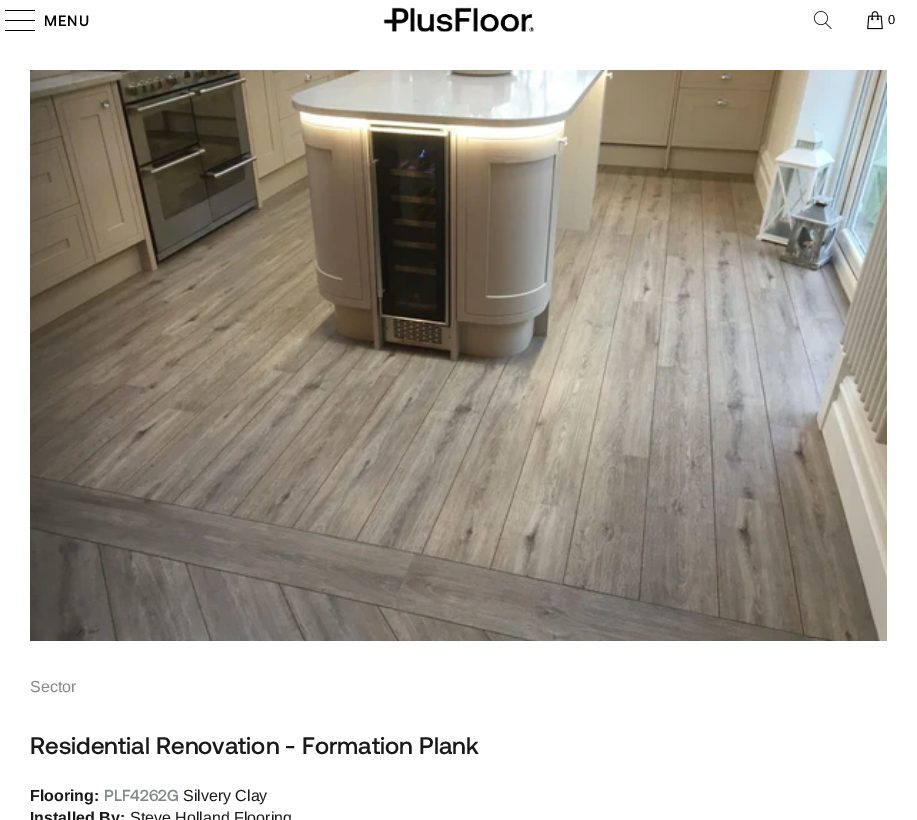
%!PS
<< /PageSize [917 820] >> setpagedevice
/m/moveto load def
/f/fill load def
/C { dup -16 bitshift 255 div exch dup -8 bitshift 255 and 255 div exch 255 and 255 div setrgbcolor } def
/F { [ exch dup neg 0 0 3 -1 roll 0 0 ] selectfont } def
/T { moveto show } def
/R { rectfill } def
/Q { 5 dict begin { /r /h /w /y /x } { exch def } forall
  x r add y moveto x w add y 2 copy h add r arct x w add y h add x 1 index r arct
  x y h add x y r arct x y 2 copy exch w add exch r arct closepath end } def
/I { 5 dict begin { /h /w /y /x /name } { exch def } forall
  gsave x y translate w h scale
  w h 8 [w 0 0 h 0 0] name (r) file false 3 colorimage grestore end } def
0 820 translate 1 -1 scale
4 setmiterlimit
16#FFFFFF C
0 0 917 820 R
16#000000 C
5 10 30 1 .5 Q f
5 20 30 1 .5 Q f
5 30 30 1 .5 Q f
/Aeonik-Medium 15 F
44 26 m 1 0 (MENU) ashow
(1.rgb) 383 7 151 25 I
(2.rgb) 814 11 18 18 I
(3.rgb) 867 11 16 19 I
/LiberationSans-Regular 13 F
888 24 m 1 0 (0) ashow
(4.rgb) 30 70 857 571 I
/LiberationSans-Regular 16 F
16#898989 C
(Sector) 30 692 T
/Aeonik-Medium 24 F
16#1A1A1A C
(Residential Renovation - Formation Plank) 30 754 T
/LiberationSans-Bold 16 F
(Flooring:) 30 801 T
/Aeonik-Medium 16 F
16#83878F C
(PLF4262G) 104 801 T
/LiberationSans-Regular 16 F
16#1A1A1A C
(Silvery Clay) 183 801 T
/LiberationSans-Bold 16 F
(Installed By:) 30 823 T
/LiberationSans-Regular 16 F
(Steve Holland Flooring) 130 823 T
showpage
